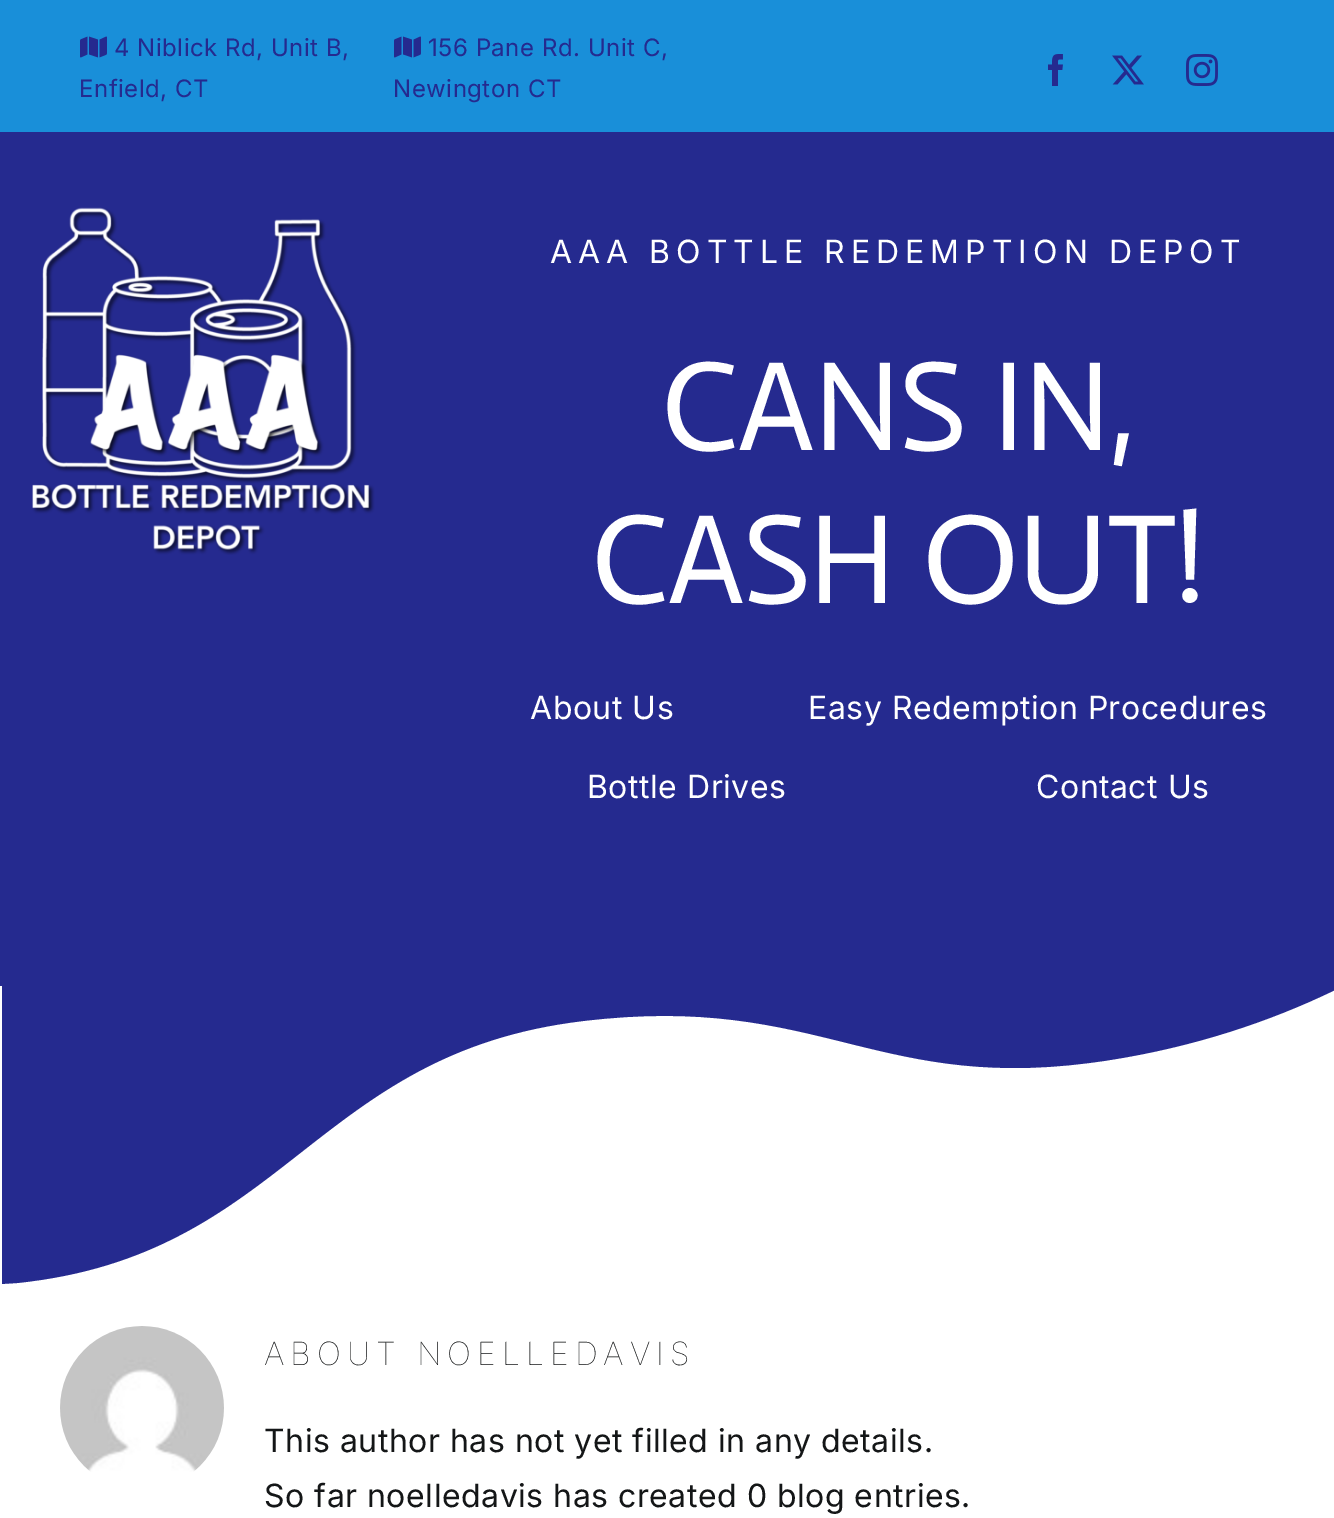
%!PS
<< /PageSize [1334 1518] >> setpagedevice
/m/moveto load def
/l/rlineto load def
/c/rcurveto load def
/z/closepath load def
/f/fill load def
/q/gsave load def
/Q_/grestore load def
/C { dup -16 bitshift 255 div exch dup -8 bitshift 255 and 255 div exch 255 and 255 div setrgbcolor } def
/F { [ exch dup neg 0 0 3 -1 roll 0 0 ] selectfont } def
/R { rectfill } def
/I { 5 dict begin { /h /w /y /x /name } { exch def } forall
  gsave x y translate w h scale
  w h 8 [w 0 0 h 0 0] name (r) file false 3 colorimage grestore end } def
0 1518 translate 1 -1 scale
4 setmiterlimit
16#FFFFFF C
0 0 1334 1518 R
16#198FD9 C
0 0 1334 132 R
(1.rgb) 80 36 27 22 I
/Inter-Regular 24 F
16#252A8F C
114 56 m .5 0 (4 Niblick Rd, Unit B,) ashow
79 97 m .5 0 (Enfield, CT) ashow
(1.rgb) 394 36 27 22 I
428 56 m .5 0 (156 Pane Rd. Unit C,) ashow
393 97 m .5 0 (Newington CT) ashow
(2.rgb) 1048 54 15 32 I
(3.rgb) 1112 55 32 30 I
(4.rgb) 1186 54 32 32 I
0 132 1334 854 R
(5.rgb) 32 207 343 348 I
/Inter-Regular 32 F
16#FFFFFF C
550 263 m 6 0 (AAA BOTTLE REDEMPTION DEPOT) ashow
/Actor-Regular 128 F
661 450 m -2 0 (CANS IN,) ashow
591 603 m -2 0 (CASH OUT!) ashow
/Inter-Regular 32 F
530 719 m .5 0 (About Us) ashow
808 719 m .5 0 (Easy Redemption Procedures) ashow
587 798 m .5 0 (Bottle Drives) ashow
1036 798 m .5 0 (Contact Us) ashow
q
2 986 1332 300 rectclip
16#252A8F C
1 1284 m 16 -1 l 269 -28 296 -230 566 -262 c 240 -29 294 76 527 39 c 83 -13 159 -38 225 -70 c 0 -6 l -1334 0 l z f
Q_
(6.rgb) 60 1326 164 146 I
/Inter-Thin 32 F
16#141617 C
264 1365 m 6 0 (ABOUT NOELLEDAVIS) ashow
/Inter-Regular 32 F
264 1452 m .5 0 (This author has not yet filled in any details.) ashow
264 1507 m .5 0 (So far noelledavis has created 0 blog entries.) ashow
showpage
